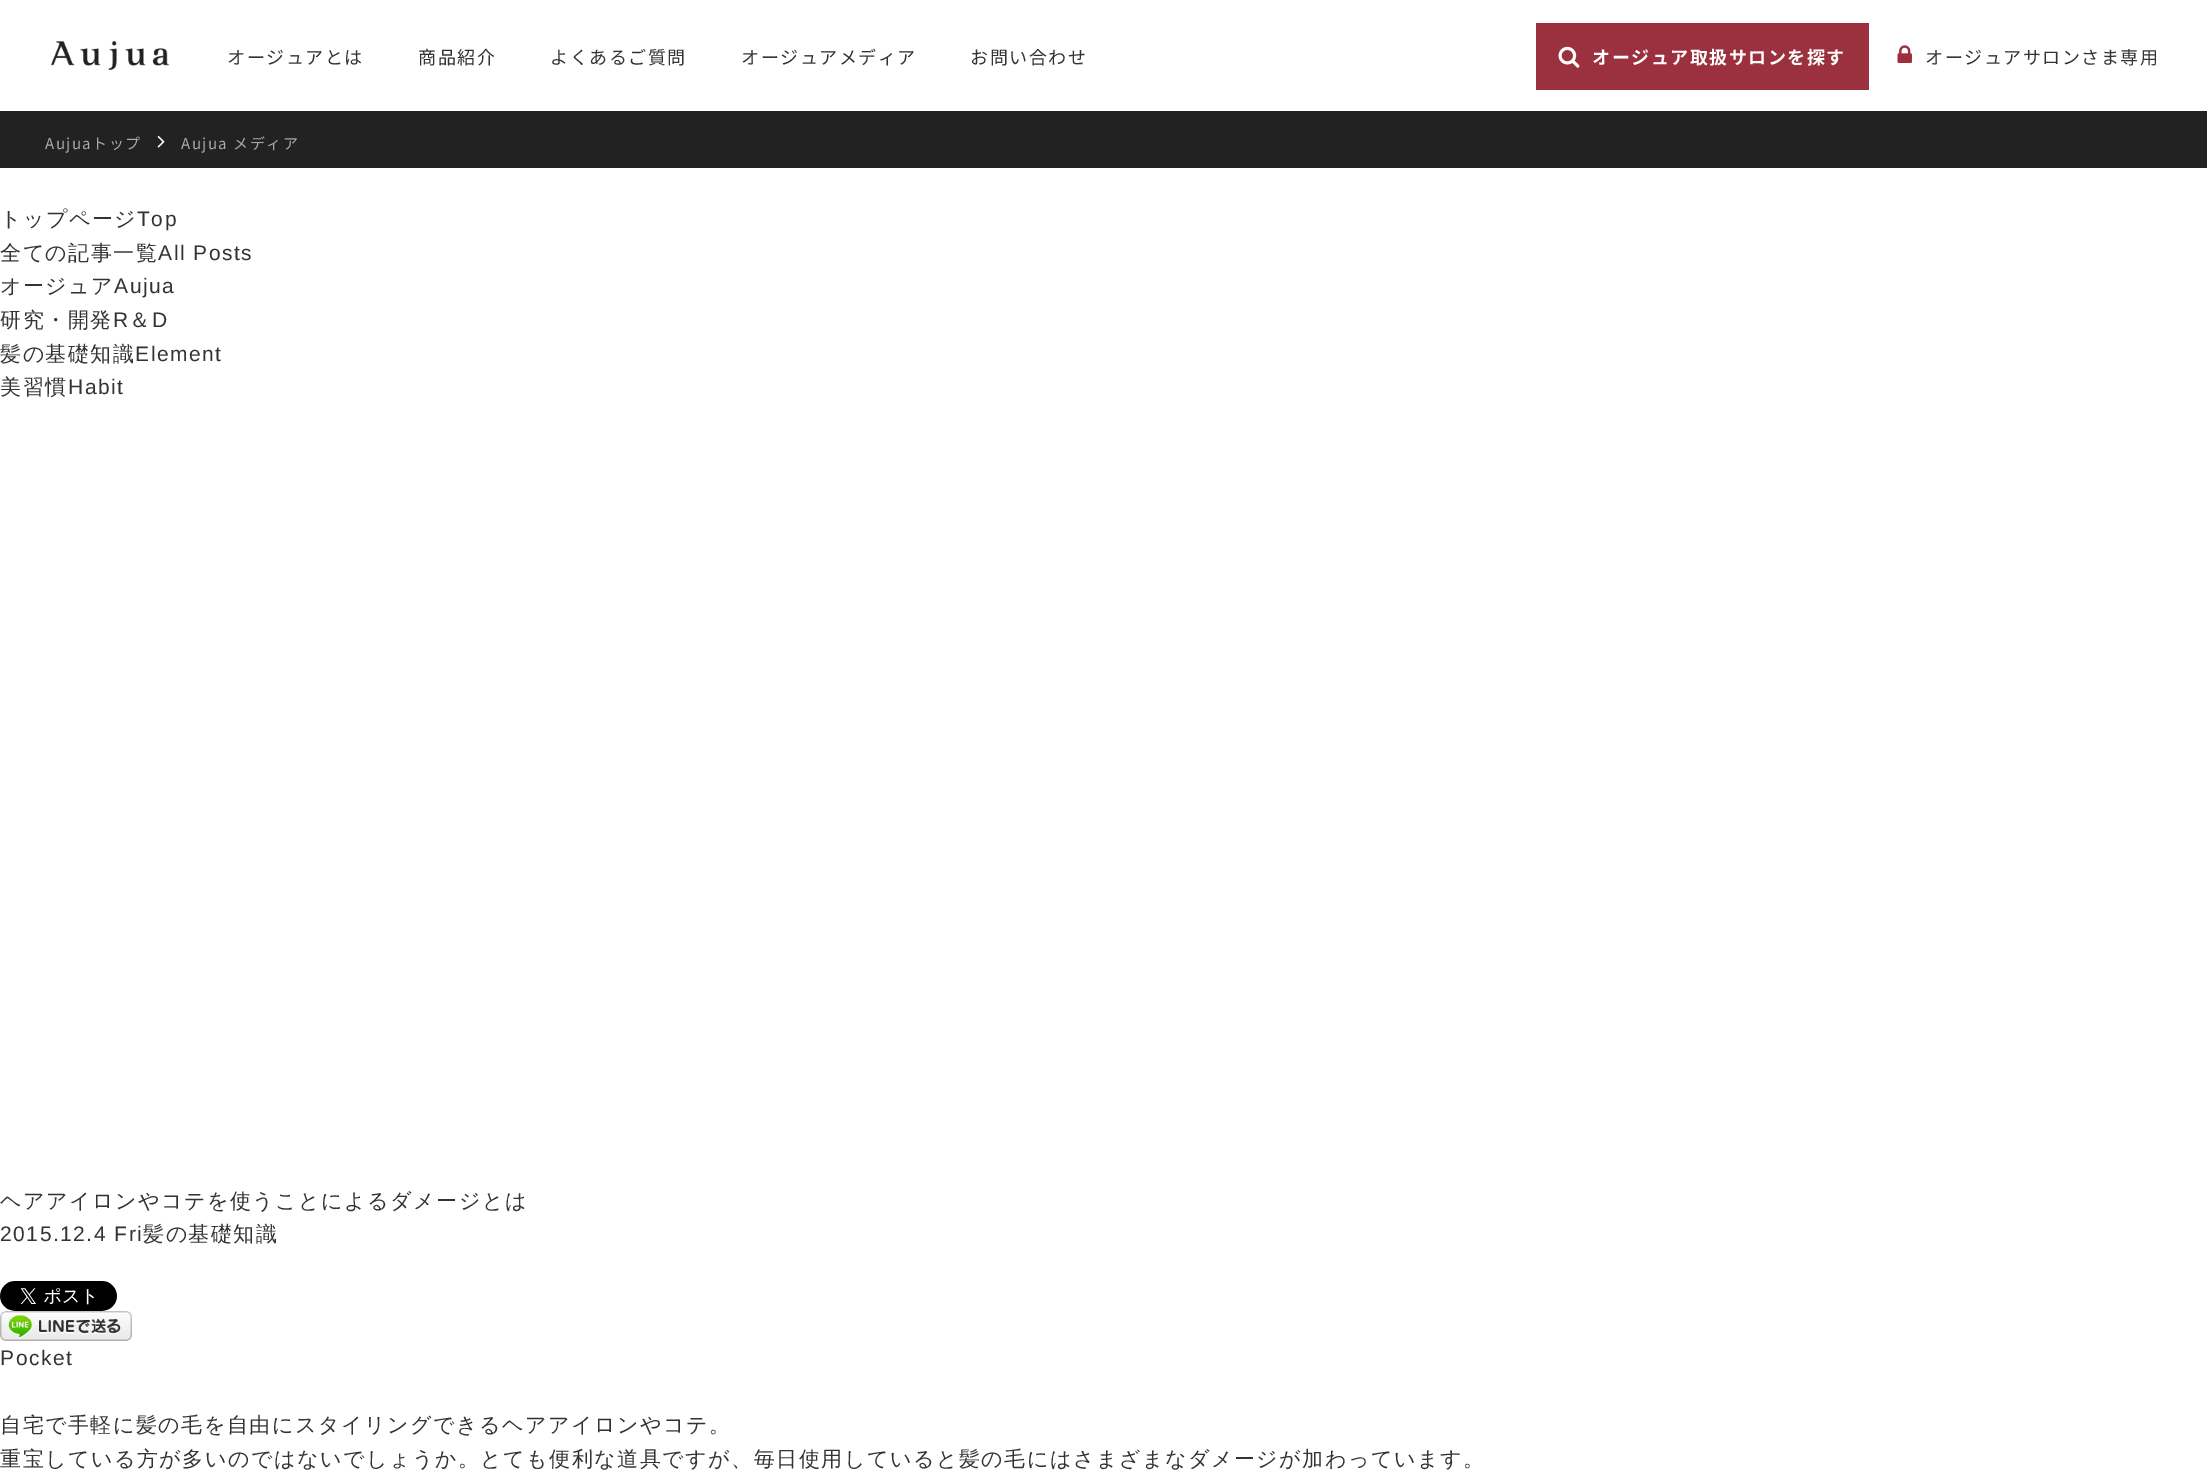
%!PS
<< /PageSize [2207 1476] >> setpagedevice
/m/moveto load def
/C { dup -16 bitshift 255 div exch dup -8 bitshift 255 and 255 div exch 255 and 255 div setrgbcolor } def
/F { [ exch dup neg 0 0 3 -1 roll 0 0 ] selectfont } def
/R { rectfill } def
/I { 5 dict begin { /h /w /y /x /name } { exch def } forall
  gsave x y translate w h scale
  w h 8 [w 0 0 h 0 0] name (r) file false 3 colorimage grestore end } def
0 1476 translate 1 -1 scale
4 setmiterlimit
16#FFFFFF C
0 0 2207 1476 R
(1.rgb) 51 41 118 29 I
/NotoSansJP-Regular 18 F
16#333333 C
227 64 m 1.5 0 (オージュアとは) ashow
418 64 m 1.5 0 (商品紹介) ashow
550 64 m 1.5 0 (よくあるご質問) ashow
741 64 m 1.5 0 (オージュアメディア) ashow
970 64 m 1.5 0 (お問い合わせ) ashow
16#9B303E C
1536 23 333 67 R
(2.rgb) 1558 46 22 22 I
/NotoSansJP-Bold 18 F
16#FFFFFF C
1592 64 m 1.5 0 (オージュア取扱サロンを探す) ashow
(3.rgb) 1897 45 15 18 I
/NotoSansJP-Regular 18 F
16#333333 C
1925 64 m 1.5 0 (オージュアサロンさま専用) ashow
16#222222 C
0 111 2207 57 R
/NotoSansJP-Regular 15 F
16#AAAAAA C
45 149 m 1.5 0 (Aujuaトップ) ashow
(4.rgb) 157 136 8 12 I
181 149 m 1.5 0 (Aujua メディア) ashow
/WenQuanYiZenHei-Medium 21 F
16#333333 C
0 226 m 1.5 0 (トップページ) ashow
/LiberationSans-Regular 21 F
137 226 m 1.5 0 (Top) ashow
/WenQuanYiZenHei-Medium 21 F
0 260 m 1.5 0 (全ての記事一覧) ashow
/LiberationSans-Regular 21 F
158 260 m 1.5 0 (All Posts) ashow
/WenQuanYiZenHei-Medium 21 F
0 293 m 1.5 0 (オージュア) ashow
/LiberationSans-Regular 21 F
114 293 m 1.5 0 (Aujua) ashow
/WenQuanYiZenHei-Medium 21 F
0 327 m 1.5 0 (研究・開発) ashow
/LiberationSans-Regular 21 F
113 327 m 1.5 0 (R) ashow
/WenQuanYiZenHei-Medium 21 F
129 327 m 1.5 0 (＆) ashow
/LiberationSans-Regular 21 F
152 327 m 1.5 0 (D) ashow
/WenQuanYiZenHei-Medium 21 F
0 361 m 1.5 0 (髪の基礎知識) ashow
/LiberationSans-Regular 21 F
135 361 m 1.5 0 (Element) ashow
/WenQuanYiZenHei-Medium 21 F
0 394 m 1.5 0 (美習慣) ashow
/LiberationSans-Regular 21 F
68 394 m 1.5 0 (Habit) ashow
/WenQuanYiZenHei-Medium 21 F
0 1208 m 1.5 0 (ヘアアイロンやコテを使うことによるダメージとは) ashow
/LiberationSans-Regular 21 F
0 1241 m 1.5 0 (2015.12.4 Fri) ashow
/WenQuanYiZenHei-Medium 21 F
143 1241 m 1.5 0 (髪の基礎知識) ashow
(5.rgb) 0 1281 117 30 I
(6.rgb) 0 1311 132 30 I
/LiberationSans-Regular 21 F
0 1365 m 1.5 0 (Pocket) ashow
/WenQuanYiZenHei-Medium 21 F
0 1432 m 1.5 0 (自宅で手軽に髪の毛を自由にスタイリングできるヘアアイロンやコテ。) ashow
0 1466 m 1.5 0 (重宝している方が多いのではないでしょうか。とても便利な道具ですが、毎日使用していると髪の毛にはさまざまなダメージが加わっています。) ashow
showpage
